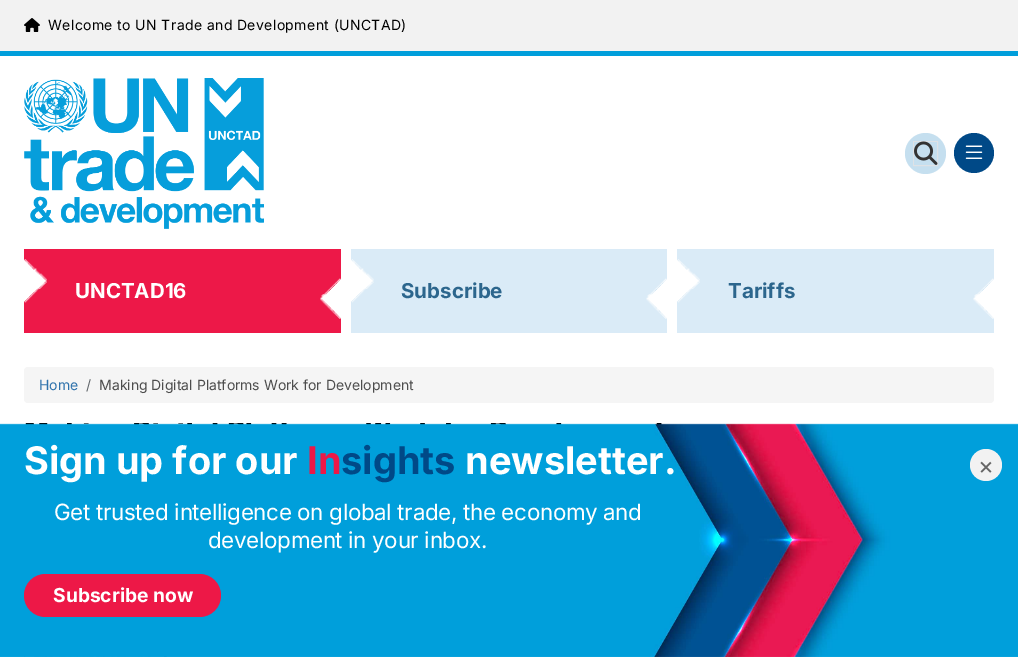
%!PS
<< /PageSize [1018 657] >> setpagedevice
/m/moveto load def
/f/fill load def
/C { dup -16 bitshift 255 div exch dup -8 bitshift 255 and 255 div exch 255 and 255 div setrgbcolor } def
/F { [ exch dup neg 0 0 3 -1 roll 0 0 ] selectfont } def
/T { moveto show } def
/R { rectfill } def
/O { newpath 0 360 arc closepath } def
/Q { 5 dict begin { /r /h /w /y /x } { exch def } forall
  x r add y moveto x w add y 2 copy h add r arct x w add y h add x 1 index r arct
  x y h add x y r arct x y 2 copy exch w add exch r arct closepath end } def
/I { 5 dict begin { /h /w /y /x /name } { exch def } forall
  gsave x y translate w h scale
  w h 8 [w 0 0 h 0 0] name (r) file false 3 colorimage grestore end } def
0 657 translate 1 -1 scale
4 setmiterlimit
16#FFFFFF C
0 0 1018 657 R
16#F2F2F2 C
0 0 1018 51 R
16#009EDB C
0 51 1018 5 R
(1.rgb) 24 18 16 14 I
/Inter-Regular 14 F
16#000000 C
48 30 m .4 0 (Welcome to UN Trade and Development \(UNCTAD\)) ashow
(2.rgb) 24 78 240 151 I
16#C5DFEF C
925.5 153.5 20.5 O f
16#DEE2E6 C
913.5 141.5 24 24 rectstroke
(3.rgb) 914 141 24 24 I
16#004987 C
974 153 20 O f
(4.rgb) 965 145 18 14 I
(5.rgb) 24 249 317 84 I
/Inter-Bold 20.5 F
16#FFFFFF C
(UNCTAD16) 75 298 T
(6.rgb) 351 249 316 84 I
16#2C668D C
(Subscribe) 401 298 T
(7.rgb) 677 249 317 84 I
(Tariffs) 728 298 T
16#F5F5F5 C
24 367 970 36 4 Q f
/Inter-Regular 14 F
16#2E72AC C
(Home) 39 390 T
16#64696D C
(/) 86 390 T
16#4D4D4D C
(Making Digital Platforms Work for Development) 99 390 T
16#999999 C
24.5 511.5 142 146 rectstroke
(9.rgb) 25 656 141 1 I
(8.rgb) 0 423 1018 234 I
/Inter-Bold 38 F
16#FFFFFF C
(Sign up for our) 24 474 T
16#ED1847 C
(In) 307 474 T
16#004987 C
(sights) 341 474 T
16#FFFFFF C
(newsletter.) 465 474 T
16#F2F2F2 C
986 465 16 O f
/Inter-Regular 24 F
16#666666 C
(×) 978 474 T
/Inter-Regular 22.4 F
16#FFFFFF C
54 520 m -.35 0 (Get trusted intelligence on global trade, the economy and) ashow
208 548 m -.35 0 (development in your inbox.) ashow
16#ED1847 C
24 574 197 43 21.5 Q f
/Inter-Bold 19.25 F
16#FFFFFF C
(Subscribe now) 53 602 T
showpage
